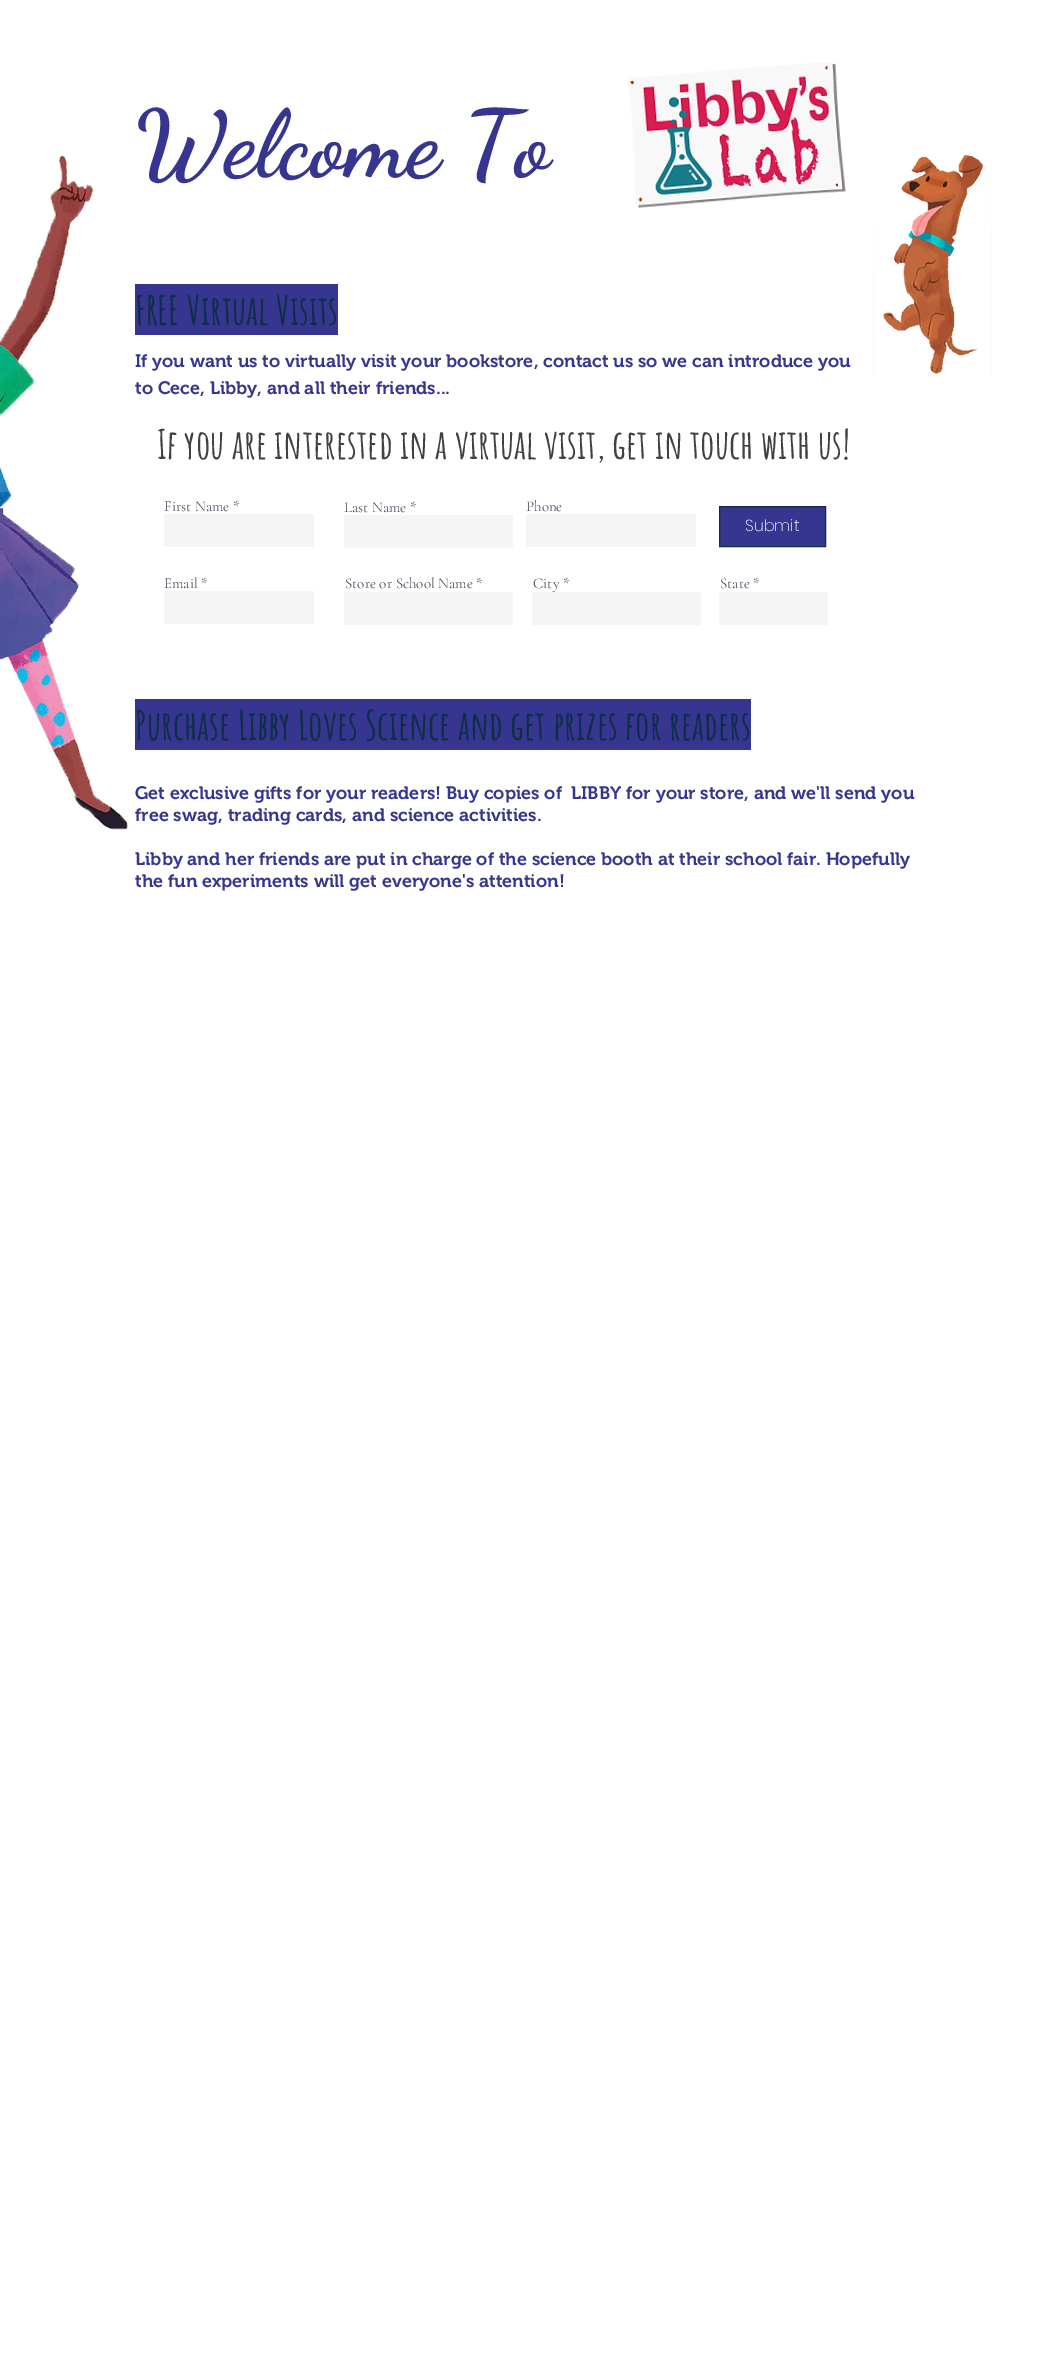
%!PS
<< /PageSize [1054 2354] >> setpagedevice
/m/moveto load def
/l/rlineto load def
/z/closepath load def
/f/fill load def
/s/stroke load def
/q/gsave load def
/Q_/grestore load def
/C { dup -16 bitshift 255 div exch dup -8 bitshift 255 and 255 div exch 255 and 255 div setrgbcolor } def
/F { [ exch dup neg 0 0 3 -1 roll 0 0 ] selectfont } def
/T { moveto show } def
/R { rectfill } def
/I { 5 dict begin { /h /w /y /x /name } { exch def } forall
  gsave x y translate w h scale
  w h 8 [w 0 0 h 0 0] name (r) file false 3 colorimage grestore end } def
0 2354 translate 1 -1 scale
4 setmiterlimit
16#FFFFFF C
0 0 1054 2354 R
/DancingScript-Bold 94 F
16#36358F C
(Welcome To) 135 175 T
(1.rgb) 628 62 218 146 I
(2.rgb) 0 155 128 675 I
135 284 203 51 R
/AmaticSC-Bold 40 F
16#0E2E47 C
(FREE Virtual Visits) 135 325 T
(3.rgb) 873 155 119 222 I
/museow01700-SemiBold 18 F
16#36358F C
(If you want us to virtually visit your bookstore, contact us so we can introduce you) 135 367 T
(to Cece, Libby, and all their friends...) 135 394 T
/AmaticSC-Bold 40 F
16#414141 C
(If you are interested in a virtual visit, get in touch with us!) 157 459 T
/CormorantGaramond-Light 15 F
16#373B4D C
(First Name *) 164 511 T
16#F5F5F5 C
164 514 150 33 R
16#373B4D C
(Last Name *) 344 512 T
16#F5F5F5 C
344 515 169 33 R
16#373B4D C
(Phone) 526 511 T
16#F5F5F5 C
526 514 170 33 R
16#36358F C
719.5 506.5 m 106 0 l 0 40 l -106 0 l z q f Q_
16#0E2E47 C
s
/Poppins-ExtraLight 16 F
16#FFFFFF C
(Submit) 745 531 T
/CormorantGaramond-Light 15 F
16#373B4D C
(Email *) 164 588 T
16#F5F5F5 C
164 591 150 33 R
16#373B4D C
(Store or School Name *) 345 588 T
16#F5F5F5 C
344 592 169 33 R
16#373B4D C
(City *) 533 588 T
16#F5F5F5 C
532 592 169 33 R
16#373B4D C
(State *) 720 588 T
16#F5F5F5 C
719 592 109 33 R
16#36358F C
135 699 616 51 R
/AmaticSC-Bold 40 F
16#0E2E47 C
(Purchase Libby Loves Science and get prizes for readers) 135 740 T
/museow01700-SemiBold 18 F
16#36358F C
(Get exclusive gifts for your readers! Buy copies of  LIBBY for your store, and we'll send you) 135 799 T
(free swag, trading cards, and science activities.) 135 821 T
(Libby and her friends are put in charge of the science booth at their school fair. Hopefully) 135 865 T
(the fun experiments will get everyone's attention!) 135 887 T
showpage
